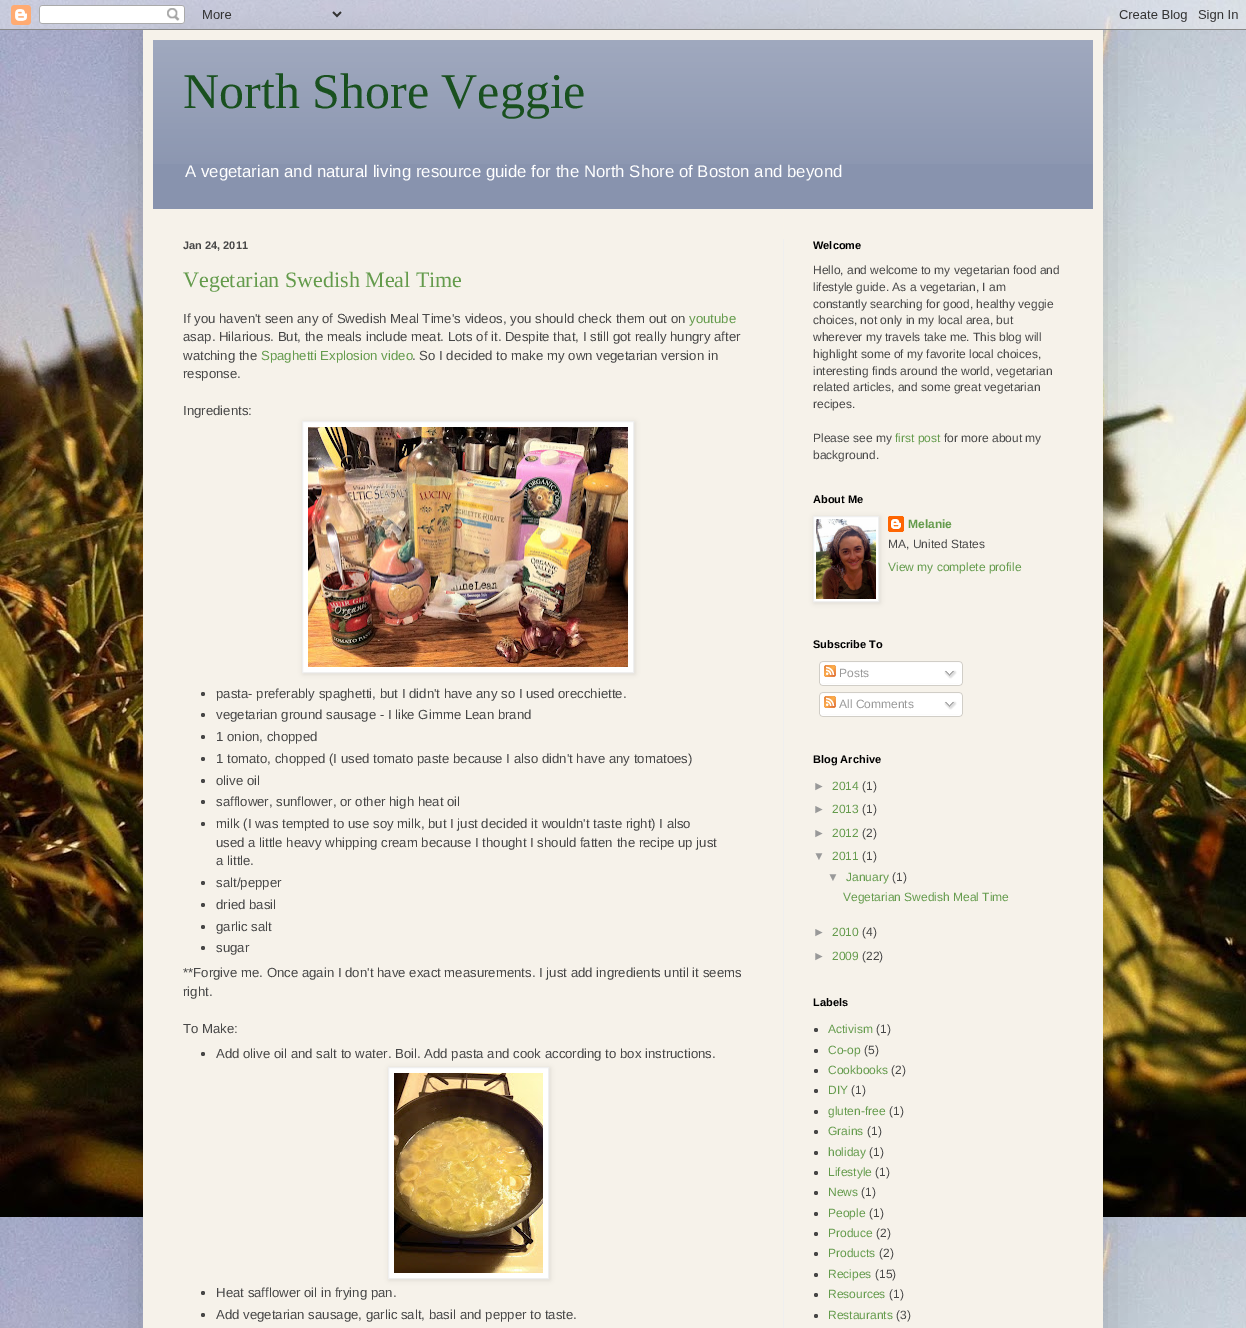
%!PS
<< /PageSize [1246 1328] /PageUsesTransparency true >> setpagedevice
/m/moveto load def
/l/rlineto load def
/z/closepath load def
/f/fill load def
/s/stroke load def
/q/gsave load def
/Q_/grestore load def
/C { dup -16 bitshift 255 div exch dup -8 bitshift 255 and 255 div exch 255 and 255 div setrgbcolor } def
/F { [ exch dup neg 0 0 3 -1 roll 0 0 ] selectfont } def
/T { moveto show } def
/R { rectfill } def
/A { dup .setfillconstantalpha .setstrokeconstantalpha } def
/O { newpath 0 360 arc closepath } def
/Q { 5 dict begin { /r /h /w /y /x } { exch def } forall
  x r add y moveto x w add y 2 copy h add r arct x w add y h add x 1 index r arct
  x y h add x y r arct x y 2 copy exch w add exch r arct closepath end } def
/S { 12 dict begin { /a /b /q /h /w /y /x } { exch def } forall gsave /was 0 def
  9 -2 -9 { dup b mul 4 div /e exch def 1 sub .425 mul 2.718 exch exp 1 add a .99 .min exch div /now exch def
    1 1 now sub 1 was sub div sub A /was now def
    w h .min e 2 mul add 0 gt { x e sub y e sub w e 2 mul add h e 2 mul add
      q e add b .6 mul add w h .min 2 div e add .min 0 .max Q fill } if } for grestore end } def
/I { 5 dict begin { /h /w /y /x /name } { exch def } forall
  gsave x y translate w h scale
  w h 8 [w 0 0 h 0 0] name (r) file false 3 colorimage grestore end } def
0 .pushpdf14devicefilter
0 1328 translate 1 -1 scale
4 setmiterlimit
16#FFFFFF C
0 0 1246 1328 R
(1.rgb) 0 0 1246 1328 I
16#000000 C
143 30 960 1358 0 20 .15 S
(2.rgb) 0 0 1246 30 I
16#F6F2EA C
143 30 960 1298 R
16#8893AE C
153 40 940 169 R
(3.rgb) 153 40 940 124 I
/LiberationSerif-Regular 50 F
16#19501F C
(North Shore Veggie) 183 108 T
/LiberationSans-Regular 16.8 F
16#FFFFFF C
(A vegetarian and natural living resource guide for the North Shore of Boston and beyond) 185 177 T
16#EFEFEF C
783 239 1 1089 R
/LiberationSans-Bold 11 F
16#474747 C
(Jan 24, 2011) 183 249 T
/LiberationSerif-Regular 22 F
16#649B4C C
(Vegetarian Swedish Meal Time) 183 287 T
/LiberationSans-Regular 13.2 F
16#474747 C
(If you haven't seen any of Swedish Meal Time's videos, you should check them out on) 183 323 T
16#649B4C C
(youtube) 689 323 T
16#474747 C
(asap. Hilarious. But, the meals include meat. Lots of it. Despite that, I still got really hungry after) 183 341 T
(watching the) 183 360 T
16#649B4C C
(Spaghetti Explosion video) 261 360 T
16#474747 C
(. So I decided to make my own vegetarian version in) 412 360 T
(response.) 183 378 T
(Ingredients:) 183 415 T
16#000000 C
303 422 332 252 0 2.5 .1 S
16#FFFFFF C
302.5 421.5 m 331 0 l 0 251 l -331 0 l z q f Q_
16#EFEFEF C
s
(4.rgb) 308 427 320 240 I
16#474747 C
203 694 2 O f
(pasta- preferably spaghetti, but I didn't have any so I used orecchiette.) 216 698 T
203 715 2 O f
(vegetarian ground sausage - I like Gimme Lean brand) 216 719 T
203 737 2 O f
(1 onion, chopped) 216 741 T
203 759 2 O f
(1 tomato, chopped \(I used tomato paste because I also didn't have any tomatoes\)) 216 763 T
203 781 2 O f
(olive oil) 216 785 T
203 802 2 O f
(safflower, sunflower, or other high heat oil) 216 806 T
203 824 2 O f
(milk \(I was tempted to use soy milk, but I just decided it wouldn't taste right\) I also) 216 828 T
(used a little heavy whipping cream because I thought I should fatten the recipe up just) 216 847 T
(a little.) 216 865 T
203 883 2 O f
(salt/pepper) 216 887 T
203 905 2 O f
(dried basil) 216 909 T
203 927 2 O f
(garlic salt) 216 931 T
203 948 2 O f
(sugar) 216 952 T
(**Forgive me. Once again I don't have exact measurements. I just add ingredients until it seems) 183 977 T
(right.) 183 996 T
(To Make:) 183 1033 T
203 1054 2 O f
(Add olive oil and salt to water. Boil. Add pasta and cook according to box instructions.) 216 1058 T
16#000000 C
389 1068 161 212 0 2.5 .1 S
16#FFFFFF C
388.5 1067.5 m 160 0 l 0 211 l -160 0 l z q f Q_
16#EFEFEF C
s
(5.rgb) 394 1073 149 200 I
16#474747 C
203 1293 2 O f
(Heat safflower oil in frying pan.) 216 1297 T
203 1315 2 O f
(Add vegetarian sausage, garlic salt, basil and pepper to taste.) 216 1319 T
/LiberationSans-Bold 11 F
16#000000 C
(Welcome) 813 249 T
/LiberationSans-Regular 12 F
16#474747 C
(Hello, and welcome to my vegetarian food and) 813 274 T
(lifestyle guide. As a vegetarian, I am) 813 291 T
(constantly searching for good, healthy veggie) 813 308 T
(choices, not only in my local area, but) 813 324 T
(wherever my travels take me. This blog will) 813 341 T
(highlight some of my favorite local choices,) 813 358 T
(interesting finds around the world, vegetarian) 813 375 T
(related articles, and some great vegetarian) 813 391 T
(recipes.) 813 408 T
(Please see my) 813 442 T
16#649B4C C
(first post) 895 442 T
16#474747 C
(for more about my) 944 442 T
(background.) 813 459 T
/LiberationSans-Bold 11 F
16#000000 C
(About Me) 813 503 T
(7.rgb) 888 516 16 16 I
814 517 66 86 0 2.5 .1 S
16#FFFFFF C
813.5 516.5 m 65 0 l 0 85 l -65 0 l z q f Q_
16#EFEFEF C
s
(6.rgb) 816 519 60 80 I
/LiberationSans-Bold 12 F
16#649B4C C
(Melanie) 908 528 T
/LiberationSans-Regular 12 F
16#474747 C
(MA, United States) 888 548 T
16#649B4C C
(View my complete profile) 888 571 T
/LiberationSans-Bold 11 F
16#000000 C
(Subscribe To) 813 648 T
(8.rgb) 819 661 144 22 I
(9.rgb) 824 665 12 12 I
/LiberationSans-Regular 12 F
16#999999 C
(Posts) 839 677 T
(10.rgb) 944 670 13 9 I
(11.rgb) 819 683 144 3 I
(8.rgb) 819 692 144 22 I
(9.rgb) 824 696 12 12 I
(All Comments) 839 708 T
(10.rgb) 944 701 13 9 I
(11.rgb) 819 714 144 3 I
/LiberationSans-Bold 11 F
16#000000 C
(Blog Archive) 813 763 T
/LiberationSans-Regular 12 F
16#999999 C
(►) 813 790 T
16#649B4C C
(2014) 832 790 T
16#474747 C
(\(1\)) 862 790 T
16#999999 C
(►) 813 813 T
16#649B4C C
(2013) 832 813 T
16#474747 C
(\(1\)) 862 813 T
16#999999 C
(►) 813 837 T
16#649B4C C
(2012) 832 837 T
16#474747 C
(\(2\)) 862 837 T
16#999999 C
(▼) 813 860 T
16#649B4C C
(2011) 832 860 T
16#474747 C
(\(1\)) 862 860 T
16#999999 C
(▼) 827 881 T
16#649B4C C
(January) 846 881 T
16#474747 C
(\(1\)) 892 881 T
16#649B4C C
(Vegetarian Swedish Meal Time) 843 901 T
16#999999 C
(►) 813 936 T
16#649B4C C
(2010) 832 936 T
16#474747 C
(\(4\)) 862 936 T
16#999999 C
(►) 813 960 T
16#649B4C C
(2009) 832 960 T
16#474747 C
(\(22\)) 862 960 T
/LiberationSans-Bold 11 F
16#000000 C
(Labels) 813 1006 T
16#474747 C
816 1030 2 O f
/LiberationSans-Regular 12 F
16#649B4C C
(Activism) 828 1033 T
16#474747 C
(\(1\)) 876 1033 T
816 1051 2 O f
16#649B4C C
(Co-op) 828 1054 T
16#474747 C
(\(5\)) 864 1054 T
816 1071 2 O f
16#649B4C C
(Cookbooks) 828 1074 T
16#474747 C
(\(2\)) 891 1074 T
816 1091 2 O f
16#649B4C C
(DIY) 828 1094 T
16#474747 C
(\(1\)) 851 1094 T
816 1112 2 O f
16#649B4C C
(gluten-free) 828 1115 T
16#474747 C
(\(1\)) 889 1115 T
816 1132 2 O f
16#649B4C C
(Grains) 828 1135 T
16#474747 C
(\(1\)) 867 1135 T
816 1153 2 O f
16#649B4C C
(holiday) 828 1156 T
16#474747 C
(\(1\)) 869 1156 T
816 1173 2 O f
16#649B4C C
(Lifestyle) 828 1176 T
16#474747 C
(\(1\)) 875 1176 T
816 1193 2 O f
16#649B4C C
(News) 828 1196 T
16#474747 C
(\(1\)) 861 1196 T
816 1214 2 O f
16#649B4C C
(People) 828 1217 T
16#474747 C
(\(1\)) 869 1217 T
816 1234 2 O f
16#649B4C C
(Produce) 828 1237 T
16#474747 C
(\(2\)) 876 1237 T
816 1254 2 O f
16#649B4C C
(Products) 828 1257 T
16#474747 C
(\(2\)) 879 1257 T
816 1275 2 O f
16#649B4C C
(Recipes) 828 1278 T
16#474747 C
(\(15\)) 875 1278 T
816 1295 2 O f
16#649B4C C
(Resources) 828 1298 T
16#474747 C
(\(1\)) 889 1298 T
816 1316 2 O f
16#649B4C C
(Restaurants) 828 1319 T
16#474747 C
(\(3\)) 896 1319 T
.poppdf14devicefilter showpage
